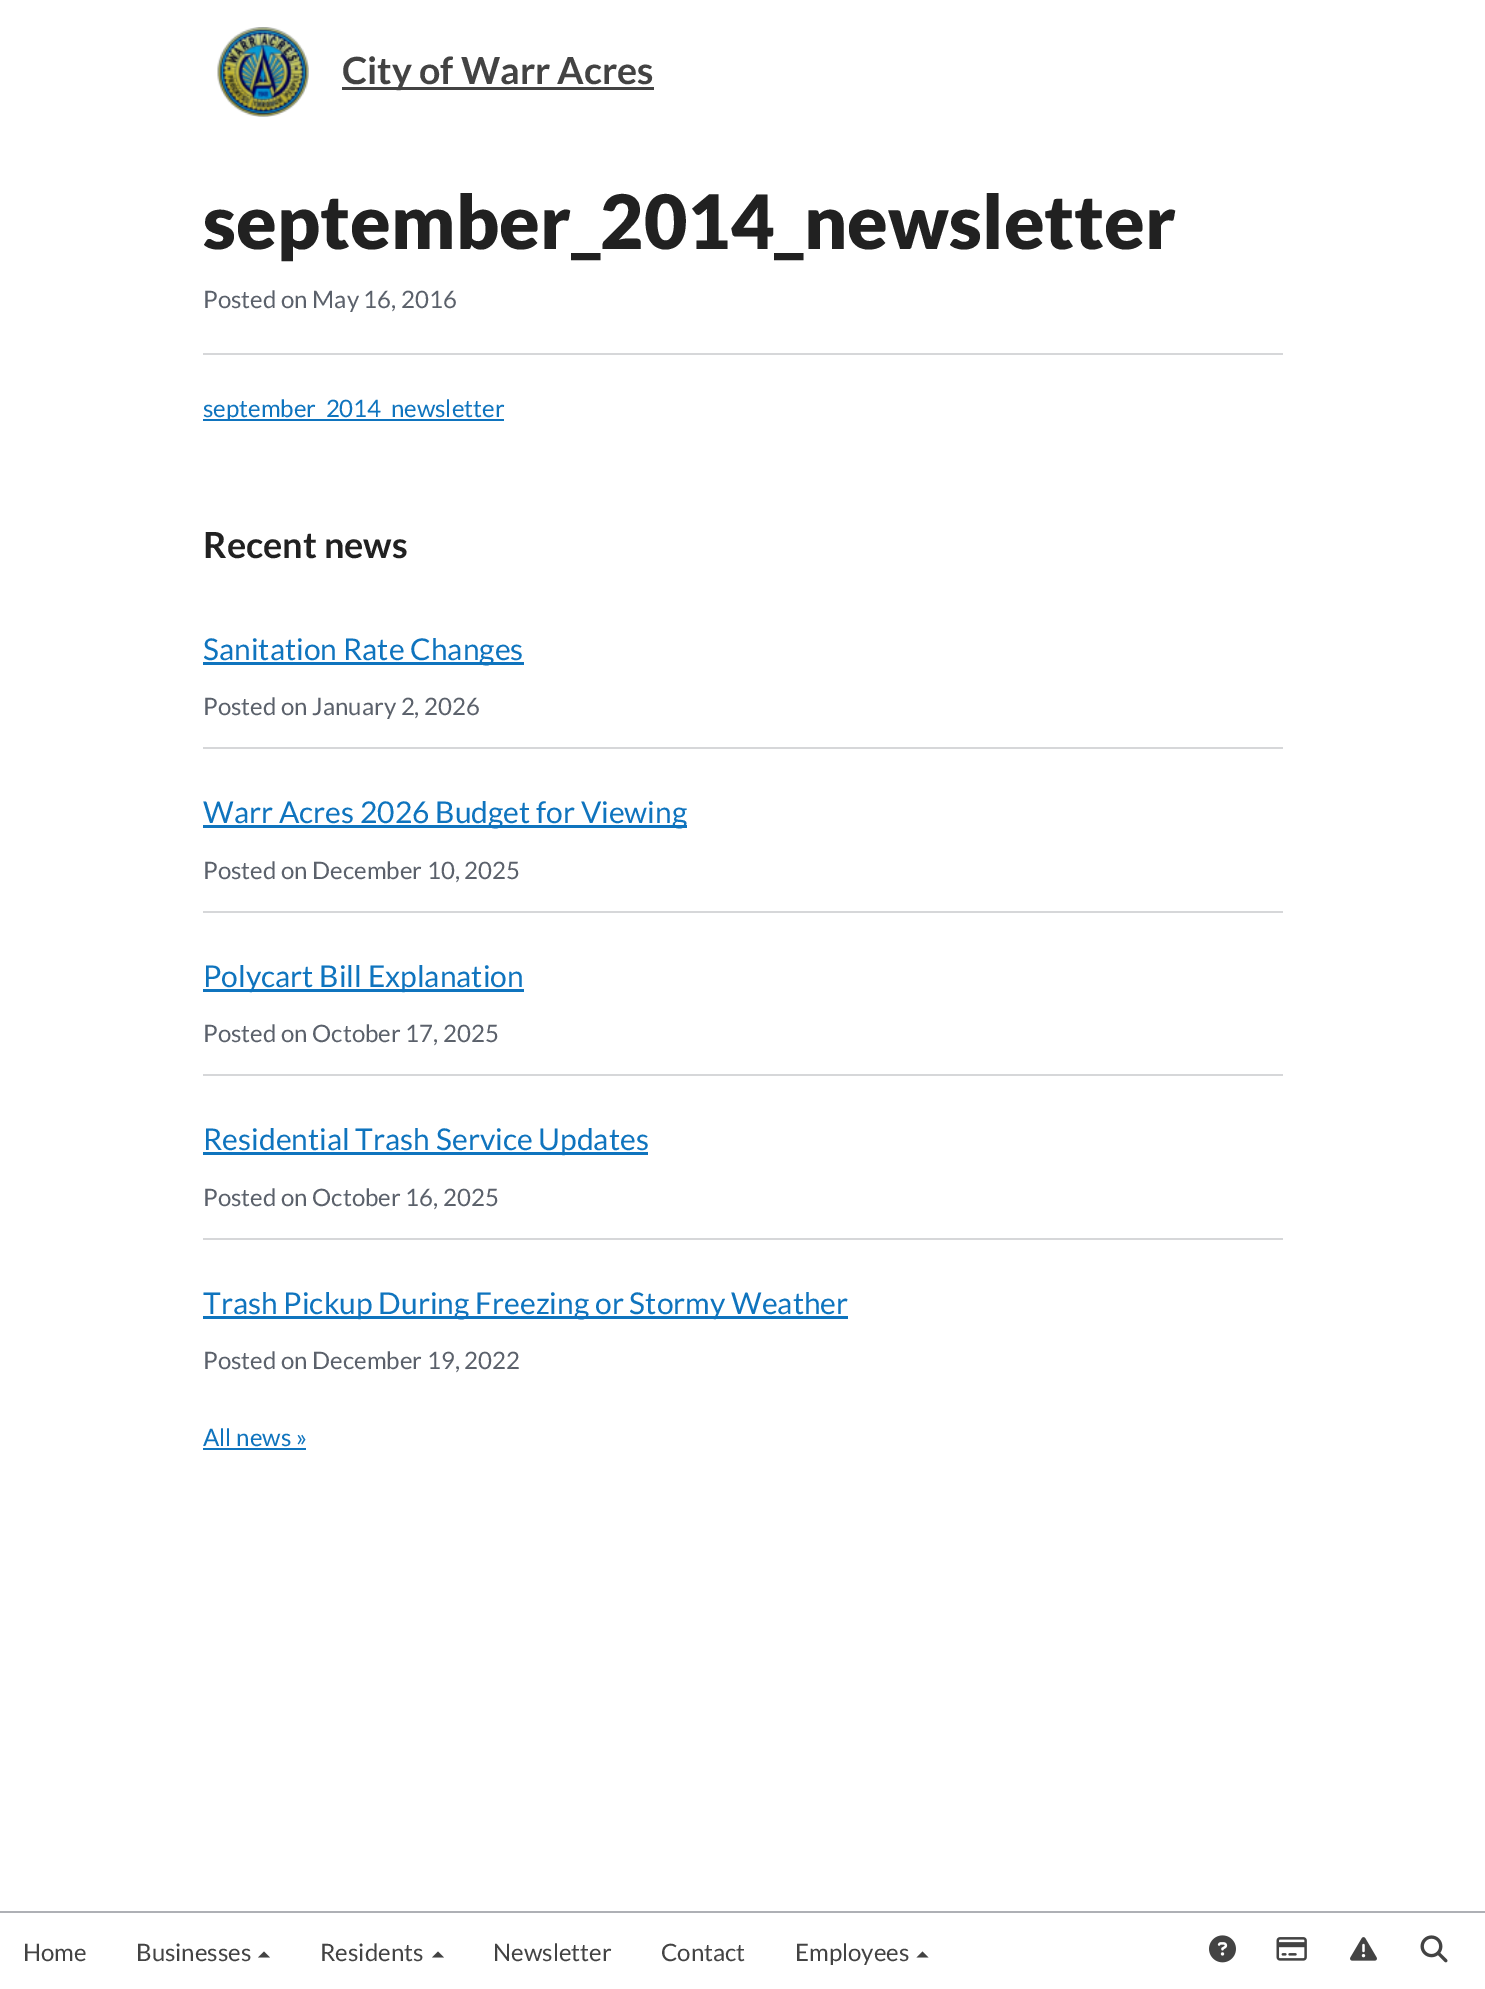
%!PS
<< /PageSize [1485 1989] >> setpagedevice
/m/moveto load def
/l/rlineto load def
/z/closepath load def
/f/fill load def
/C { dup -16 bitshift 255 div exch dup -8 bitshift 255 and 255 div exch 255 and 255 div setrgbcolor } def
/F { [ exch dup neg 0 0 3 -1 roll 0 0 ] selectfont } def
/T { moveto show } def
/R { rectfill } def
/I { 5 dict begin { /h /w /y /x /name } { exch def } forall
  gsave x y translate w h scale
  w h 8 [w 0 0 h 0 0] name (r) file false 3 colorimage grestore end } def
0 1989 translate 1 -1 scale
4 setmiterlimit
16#FFFFFF C
0 0 1485 1989 R
(1.rgb) 217 27 92 90 I
16#434343 C
342 87 312 3 R
/Lato-Bold 37.5 F
(City of Warr Acres) 342 84 T
16#AEB0B5 C
0 1911 1485 2 R
/Lato-Regular 24 F
16#434343 C
(Home) 23 1961 T
(Businesses) 136 1961 T
270 1957.5 m -12 0 l 6 -6 l z f
(Residents) 320 1961 T
444 1957.5 m -12 0 l 6 -6 l z f
(Newsletter) 493 1961 T
(Contact) 661 1961 T
(Employees) 795 1961 T
928.5 1957.5 m -12 0 l 6 -6 l z f
(2.rgb) 1209 1935 27 28 I
(3.rgb) 1276 1937 31 24 I
(4.rgb) 1350 1937 27 24 I
(5.rgb) 1420 1935 28 28 I
/Lato-Black 75 F
16#212121 C
(september_2014_newsletter) 203 249 T
/Lato-Regular 24 F
16#5B616B C
(Posted on May 16, 2016) 203 308 T
16#D6D7D9 C
203 353 1080 2 R
16#0F74BE C
203 419 301 2 R
(september_2014_newsletter) 203 417 T
/Lato-Bold 36 F
16#212121 C
(Recent news) 203 558 T
16#0F74BE C
203 662 321 3 R
/Lato-Regular 30 F
(Sanitation Rate Changes) 203 660 T
/Lato-Regular 24 F
16#5B616B C
(Posted on January 2, 2026) 203 715 T
16#D6D7D9 C
203 747 1080 2 R
16#0F74BE C
203 825 484 3 R
/Lato-Regular 30 F
(Warr Acres 2026 Budget for Viewing) 203 823 T
/Lato-Regular 24 F
16#5B616B C
(Posted on December 10, 2025) 203 879 T
16#D6D7D9 C
203 911 1080 2 R
16#0F74BE C
203 989 321 3 R
/Lato-Regular 30 F
(Polycart Bill Explanation) 203 987 T
/Lato-Regular 24 F
16#5B616B C
(Posted on October 17, 2025) 203 1042 T
16#D6D7D9 C
203 1074 1080 2 R
16#0F74BE C
203 1152 445 3 R
/Lato-Regular 30 F
(Residential Trash Service Updates) 203 1150 T
/Lato-Regular 24 F
16#5B616B C
(Posted on October 16, 2025) 203 1206 T
16#D6D7D9 C
203 1238 1080 2 R
16#0F74BE C
203 1316 645 3 R
/Lato-Regular 30 F
(Trash Pickup During Freezing or Stormy Weather) 203 1314 T
/Lato-Regular 24 F
16#5B616B C
(Posted on December 19, 2022) 203 1369 T
16#0F74BE C
(All news ») 203 1446 T
203 1448 103 2 R
showpage
